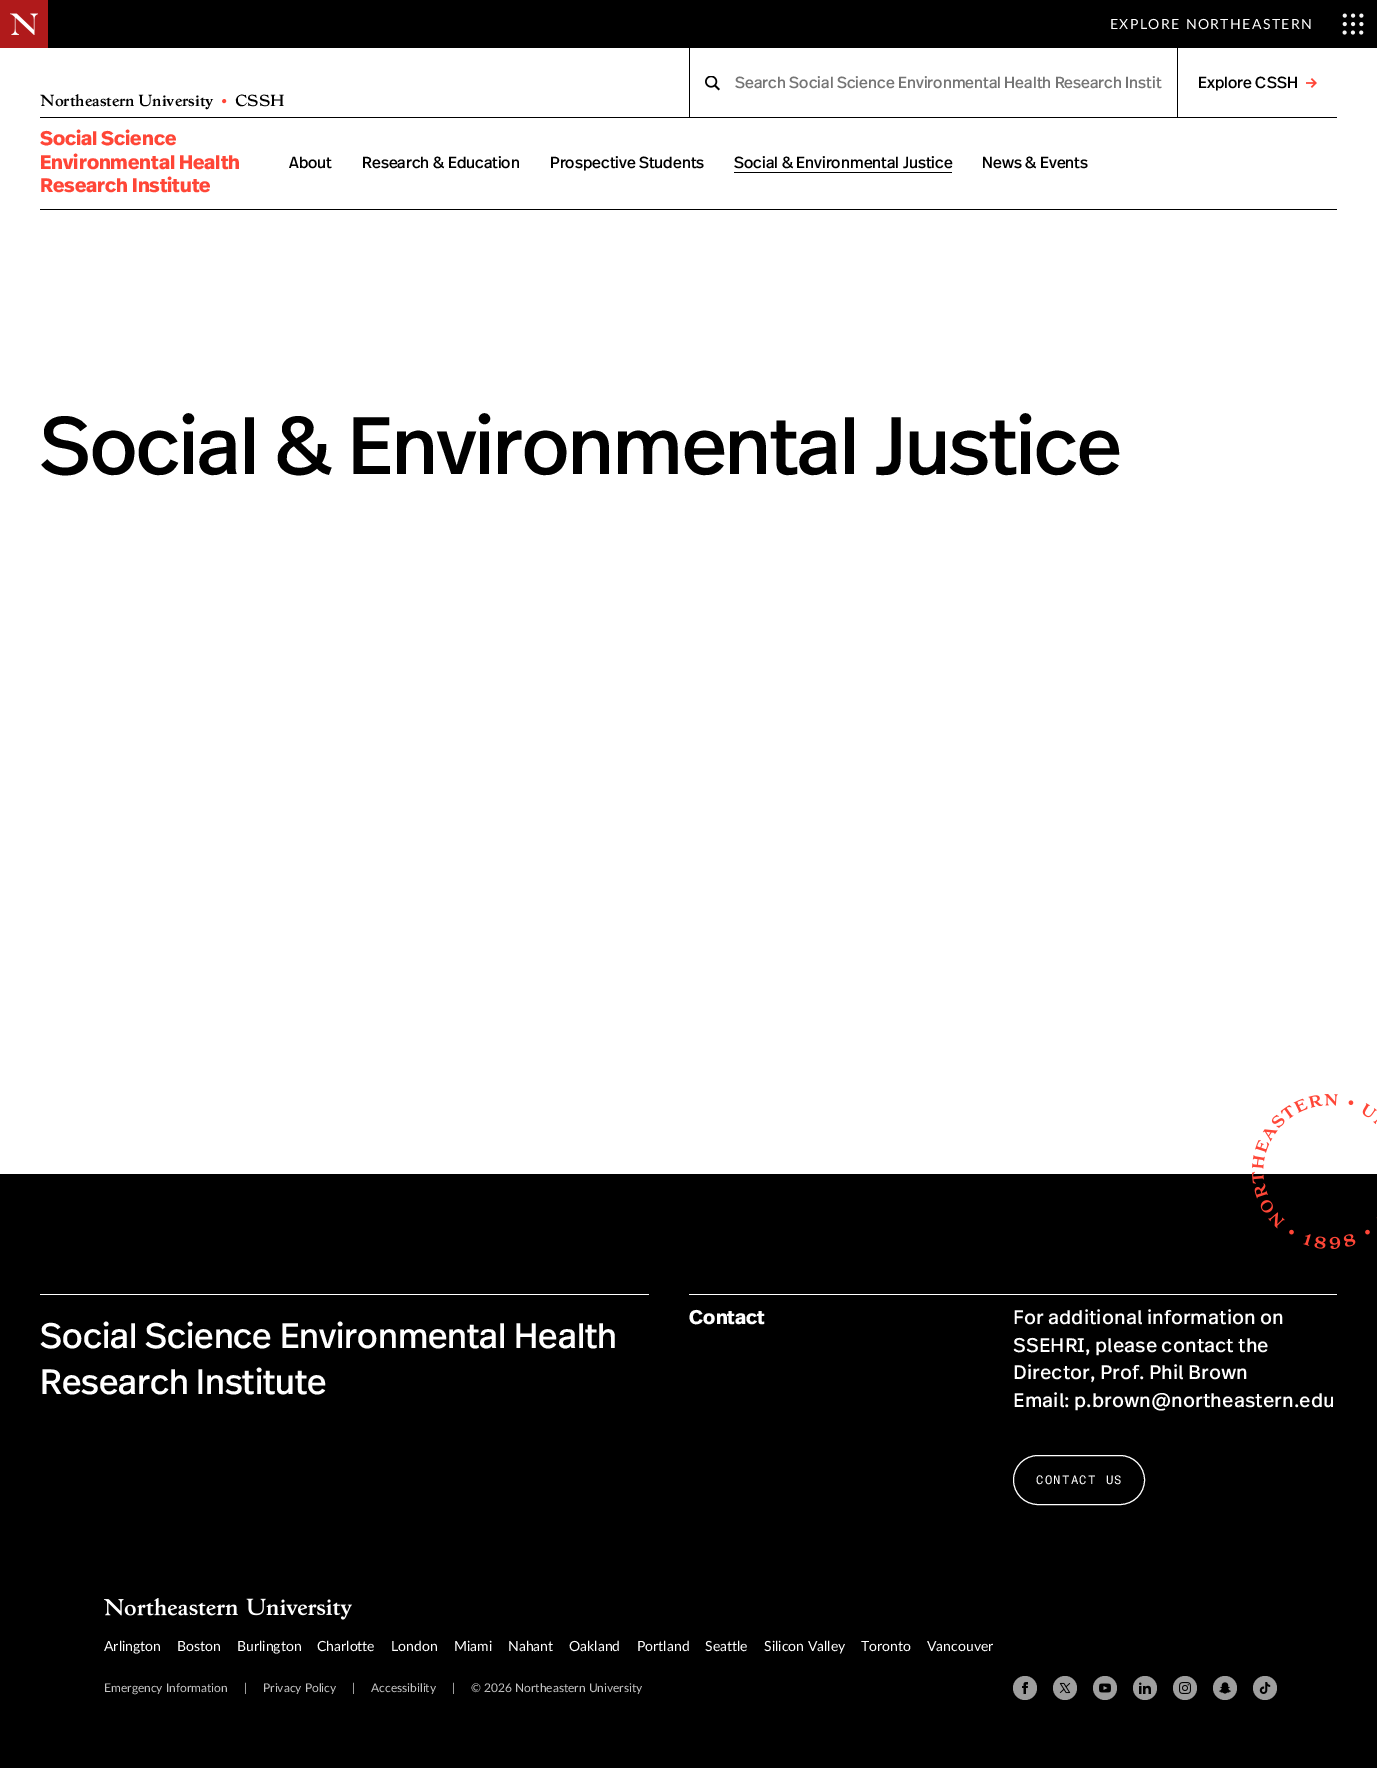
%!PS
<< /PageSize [1377 1784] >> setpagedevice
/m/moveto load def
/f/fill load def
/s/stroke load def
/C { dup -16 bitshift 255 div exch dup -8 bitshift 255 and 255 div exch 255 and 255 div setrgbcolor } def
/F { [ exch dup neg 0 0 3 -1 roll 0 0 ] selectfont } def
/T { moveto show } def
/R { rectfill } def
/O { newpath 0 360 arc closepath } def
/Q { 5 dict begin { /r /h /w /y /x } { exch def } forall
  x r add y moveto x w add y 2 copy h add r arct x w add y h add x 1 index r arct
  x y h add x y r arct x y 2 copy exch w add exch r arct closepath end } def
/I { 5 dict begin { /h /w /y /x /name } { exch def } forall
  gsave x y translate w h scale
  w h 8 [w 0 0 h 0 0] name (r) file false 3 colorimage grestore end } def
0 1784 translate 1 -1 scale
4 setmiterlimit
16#FFFFFF C
0 0 1377 1784 R
16#000000 C
48 0 1329 48 R
16#B01A1B C
0 0 48 48 R
(1.rgb) 10 13 28 22 I
/Lato-Regular 14 F
16#FFFFFF C
1110 29 m 1.4 0 (EXPLORE NORTHEASTERN) ashow
(2.rgb) 1342 13 22 22 I
16#000000 C
40 117 1297 1 R
689 48 1 69 R
(3.rgb) 705 76 15 15 I
/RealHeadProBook-Regular 16 F
16#757575 C
(Search Social Science Environmental Health Research Instit) 735 88 T
16#000000 C
1177 48 1 69 R
(Explore CSSH) 1198 88 T
(4.rgb) 1306 78 11 10 I
/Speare-Regular 15.5 F
(Northeastern University) 40 106 T
16#FF4637 C
(•) 221 106 T
16#000000 C
(CSSH) 235 106 T
40 209 1297 1 R
/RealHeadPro-Bold 19.7 F
16#FF4637 C
(Social Science) 40 145 T
(Environmental Health) 40 169 T
(Research Institute) 40 192 T
/RealHeadProBook-Regular 16 F
16#000000 C
(About) 289 168 T
(Research & Education) 362 168 T
(Prospective Students) 550 168 T
734 172 218 1 R
(Social & Environmental Justice) 734 168 T
(News & Events) 982 168 T
/RealHeadProBook-Regular 80.9 F
40 474 m -.8 0 (Social & Environmental Justice) ashow
0 1174 1377 594 R
(5.rgb) 1252 1094 125 155 I
16#FFFFFF C
40 1294 609 1 R
/RealHeadProBook-Regular 35.25 F
(Social Science Environmental Health) 40 1348 T
(Research Institute) 40 1394 T
689 1294 648 1 R
/RealHeadPro-Bold 19.7 F
(Contact) 689 1324 T
/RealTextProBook-Regular 19.7 F
(For additional information on) 1013 1324 T
(SSEHRI, please contact the) 1013 1352 T
(Director, Prof. Phil Brown) 1013 1379 T
(Email: p.brown@northeastern.edu) 1013 1407 T
1013.5 1455.5 131 49 24.5 Q s
/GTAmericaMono-Regular 12 F
1036 1484 m 1.25 0 (CONTACT US) ashow
(6.rgb) 104 1598 248 22 I
/Lato-Regular 14 F
(Arlington) 104 1651 T
(Boston) 177 1651 T
(Burlington) 237 1651 T
(Charlotte) 317 1651 T
(London) 391 1651 T
(Miami) 454 1651 T
(Nahant) 508 1651 T
(Oakland) 569 1651 T
(Portland) 637 1651 T
(Seattle) 705 1651 T
(Silicon Valley) 764 1651 T
(Toronto) 861 1651 T
(Vancouver) 927 1651 T
/Lato-Regular 12 F
16#C4C4C4 C
(Emergency Information) 104 1692 T
16#9E9E9E C
(|) 244 1692 T
16#C4C4C4 C
(Privacy Policy) 263 1692 T
16#9E9E9E C
(|) 352 1692 T
16#C4C4C4 C
(Accessibility) 371 1692 T
16#9E9E9E C
(|) 452 1692 T
16#C4C4C4 C
(© 2026 Northeastern University) 471 1692 T
16#9E9E9E C
1025 1688 12 O f
(7.rgb) 1022 1682 6 12 I
1065 1688 12 O f
(8.rgb) 1059 1682 12 12 I
1105 1688 12 O f
(9.rgb) 1099 1683 12 10 I
1145 1688 12 O f
(10.rgb) 1139 1682 12 12 I
1185 1688 12 O f
(11.rgb) 1179 1682 12 12 I
1225 1688 12 O f
(12.rgb) 1219 1682 12 12 I
1265 1688 12 O f
(13.rgb) 1259 1682 12 12 I
showpage
